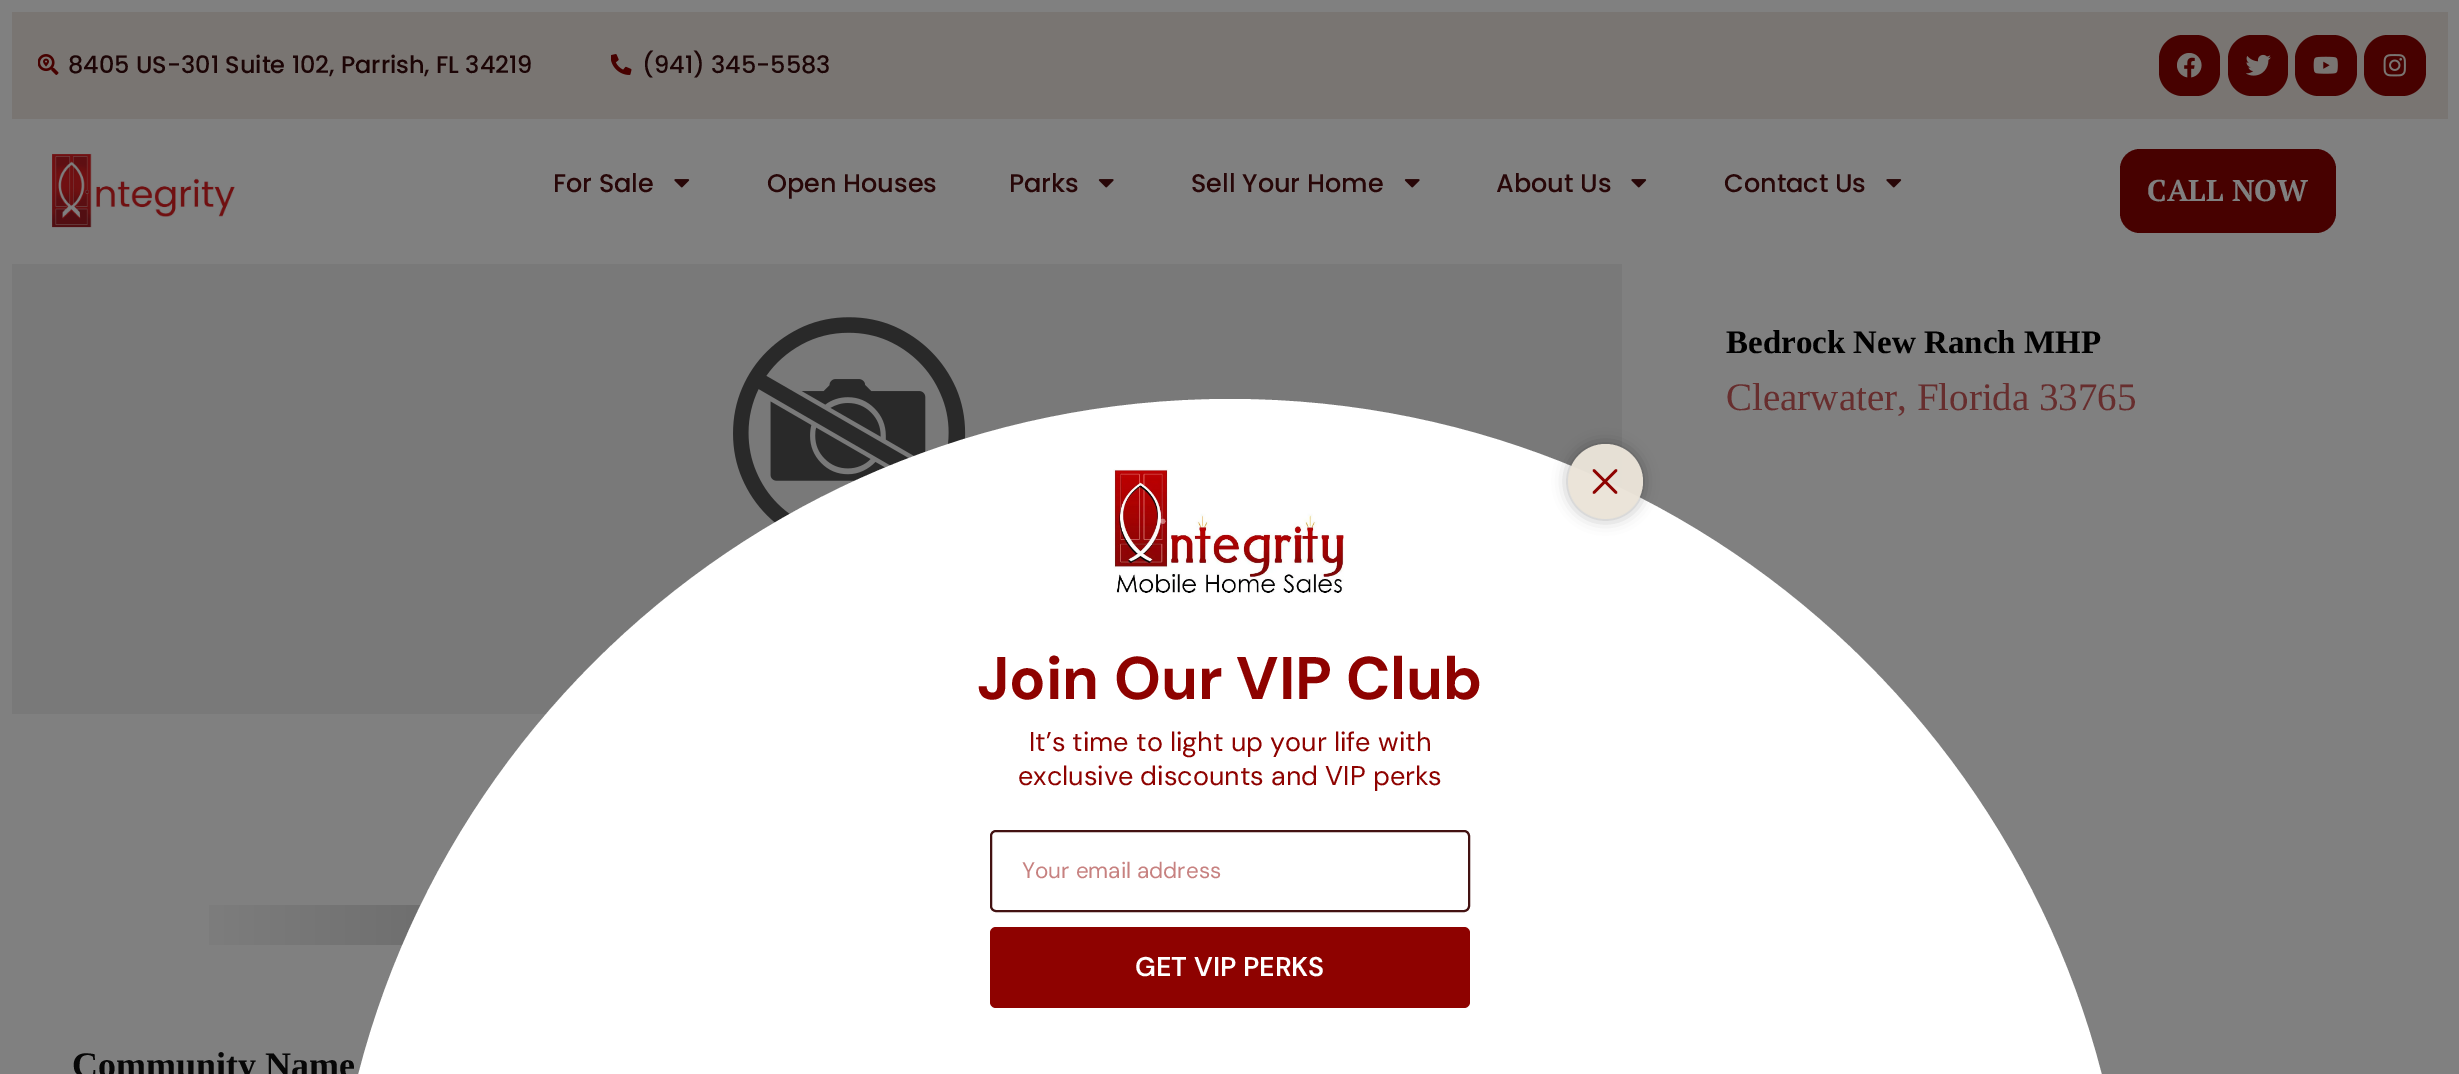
%!PS
<< /PageSize [2459 1074] /PageUsesTransparency true >> setpagedevice
/m/moveto load def
/l/rlineto load def
/c/rcurveto load def
/z/closepath load def
/f/fill load def
/s/stroke load def
/q/gsave load def
/Q_/grestore load def
/w/setlinewidth load def
/C { dup -16 bitshift 255 div exch dup -8 bitshift 255 and 255 div exch 255 and 255 div setrgbcolor } def
/F { [ exch dup neg 0 0 3 -1 roll 0 0 ] selectfont } def
/T { moveto show } def
/R { rectfill } def
/A { dup .setfillconstantalpha .setstrokeconstantalpha } def
/O { newpath 0 360 arc closepath } def
/Q { 5 dict begin { /r /h /w /y /x } { exch def } forall
  x r add y moveto x w add y 2 copy h add r arct x w add y h add x 1 index r arct
  x y h add x y r arct x y 2 copy exch w add exch r arct closepath end } def
/S { 12 dict begin { /a /b /q /h /w /y /x } { exch def } forall gsave /was 0 def
  9 -2 -9 { dup b mul 4 div /e exch def 1 sub .425 mul 2.718 exch exp 1 add a .99 .min exch div /now exch def
    1 1 now sub 1 was sub div sub A /was now def
    w h .min e 2 mul add 0 gt { x e sub y e sub w e 2 mul add h e 2 mul add
      q e add b .6 mul add w h .min 2 div e add .min 0 .max Q fill } if } for grestore end } def
/I { 5 dict begin { /h /w /y /x /name } { exch def } forall
  gsave x y translate w h scale
  w h 8 [w 0 0 h 0 0] name (r) file false 3 colorimage grestore end } def
0 .pushpdf14devicefilter
0 1074 translate 1 -1 scale
4 setmiterlimit
16#808080 C
0 0 2459 1074 R
16#797572 C
12 12 2436 107 R
(1.rgb) 38 54 21 21 I
/Poppins-Medium 24 F
16#1C0506 C
(8405 US-301 Suite 102, Parrish, FL 34219) 68 73 T
(2.rgb) 611 54 21 21 I
(\(941\) 345-5583) 642 73 T
16#470100 C
2159 35 61 61 24 Q f
(3.rgb) 2177 53 25 25 I
2228 35 60 61 24 Q f
(4.rgb) 2246 54 25 22 I
2295 35 62 61 24 Q f
(5.rgb) 2313 56 25 18 I
2364 35 62 61 24 Q f
(6.rgb) 2383 54 23 23 I
(7.rgb) 52 153 183 75 I
/Poppins-Medium 25.5 F
16#280708 C
(For Sale) 553 192 T
(8.rgb) 674 179 16 9 I
(Open Houses) 767 192 T
(Parks) 1009 192 T
(9.rgb) 1098 179 16 9 I
(Sell Your Home) 1191 192 T
(9.rgb) 1404 179 16 9 I
(About Us) 1496 192 T
(8.rgb) 1631 179 16 9 I
(Contact Us) 1724 192 T
(8.rgb) 1886 179 16 9 I
16#470100 C
2120 149 216 84 20 Q f
/PTSerif-Bold 30 F
16#808080 C
(CALL NOW) 2147 201 T
/LiberationSerif-Bold 33 F
16#000000 C
(Bedrock New Ranch MHP) 1726 353 T
/LiberationSerif-Regular 39 F
16#672E2E C
(Clearwater, Florida 33765) 1726 410 T
16#797979 C
12 264 1610 450 R
(10.rgb) 733 317 233 206 I
q 209 905 m 212 0 l 0 40 l -212 0 l z clip newpath
<< /ShadingType 2 /ColorSpace /DeviceRGB /Coords [12 925 1622 925] /Extend [true true] /Function << /FunctionType 3 /Domain [0 1] /Functions [<< /FunctionType 2 /Domain [0 1] /C0 [.502 .502 .502] /C1 [.502 .502 .502] /N 1 >> << /FunctionType 2 /Domain [0 1] /C0 [.502 .502 .502] /C1 [.325 .325 .325] /N 1 >> << /FunctionType 2 /Domain [0 1] /C0 [.325 .325 .325] /C1 [.502 .502 .502] /N 1 >> << /FunctionType 2 /Domain [0 1] /C0 [.502 .502 .502] /C1 [.502 .502 .502] /N 1 >>] /Bounds [.1 .5 .9] /Encode [0 1 0 1 0 1 0 1] >> >> shfill Q_
/LiberationSerif-Bold 36 F
16#070707 C
(Community Name) 72 1077 T
16#FFFFFF C
1230 399 m 497 0 900 403 900 900 c 0 -225 l -1800 0 l 0 225 l 0 -497 403 -900 900 -900 c z f
q
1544 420 m 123 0 l 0 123 l -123 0 l z 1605.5 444 m 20.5 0 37.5 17 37.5 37.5 c 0 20.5 -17 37.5 -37.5 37.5 c -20.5 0 -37.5 -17 -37.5 -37.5 c 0 -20.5 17 -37.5 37.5 -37.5 c z eoclip newpath
16#000000 C
1568 444 75 75 37.5 7.5 .3 S
Q_
0.97 A
16#EAE3D8 C
1605.5 481.5 37.5 O f
1 A
16#8E0200 C
2.5 w
1 setlinecap
1594 470.5 m 22 22 l 1616 470.5 m -22 22 l s
(11.rgb) 1113 469 231 124 I
/DMSans-Bold 60 F
(Join Our VIP Club) 977 699 T
/DMSans-Regular 27 F
(It’s time to light up your life with) 1029 751 T
(exclusive discounts and VIP perks) 1018 785 T
16#431212 C
2 w
0 setlinecap
991 831 478 80 5 Q s
/DMSans-Regular 22.5 F
16#C78180 C
(Your email address) 1022 878 T
16#8E0200 C
990 927 480 81 6 Q f
/DMSans-SemiBold 27 F
16#FFFFFF C
(GET VIP PERKS) 1135 976 T
.poppdf14devicefilter showpage
